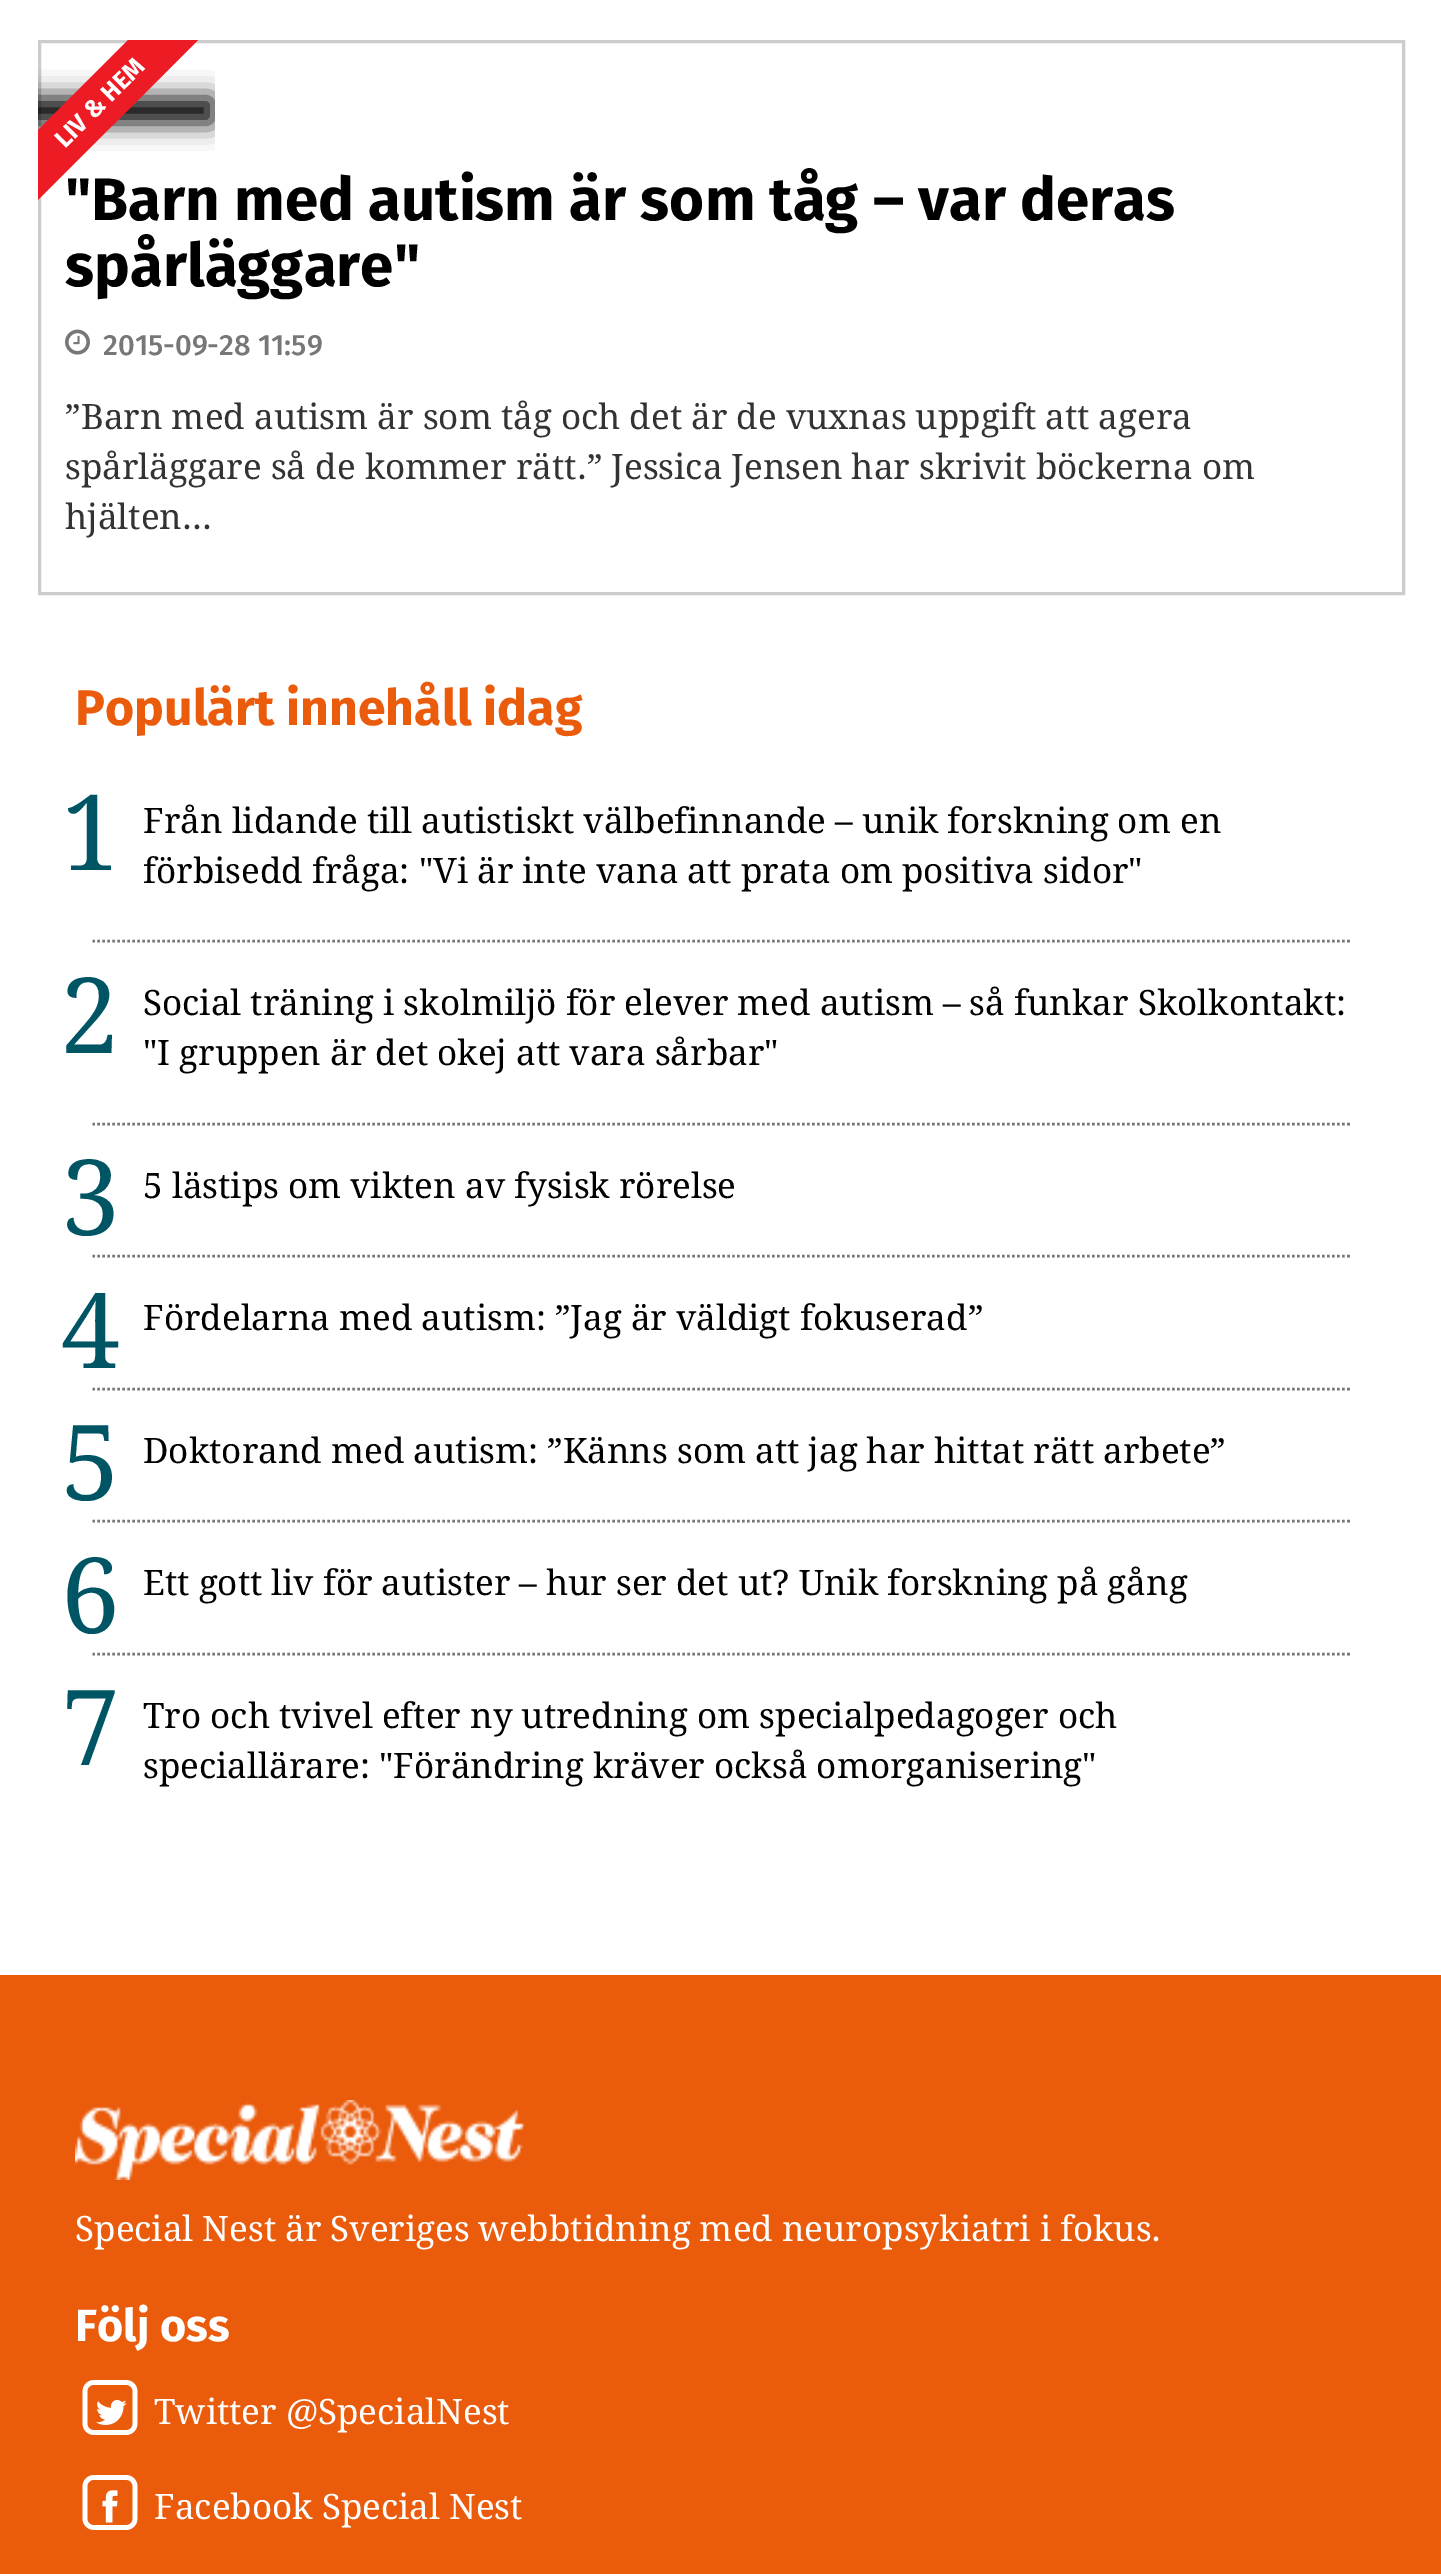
%!PS
<< /PageSize [1441 2574] /PageUsesTransparency true >> setpagedevice
/m/moveto load def
/l/rlineto load def
/z/closepath load def
/f/fill load def
/s/stroke load def
/q/gsave load def
/Q_/grestore load def
/w/setlinewidth load def
/C { dup -16 bitshift 255 div exch dup -8 bitshift 255 and 255 div exch 255 and 255 div setrgbcolor } def
/F { [ exch dup neg 0 0 3 -1 roll 0 0 ] selectfont } def
/T { moveto show } def
/R { rectfill } def
/A { dup .setfillconstantalpha .setstrokeconstantalpha } def
/Q { 5 dict begin { /r /h /w /y /x } { exch def } forall
  x r add y moveto x w add y 2 copy h add r arct x w add y h add x 1 index r arct
  x y h add x y r arct x y 2 copy exch w add exch r arct closepath end } def
/S { 12 dict begin { /a /b /q /h /w /y /x } { exch def } forall gsave /was 0 def
  9 -2 -9 { dup b mul 4 div /e exch def 1 sub .425 mul 2.718 exch exp 1 add a .99 .min exch div /now exch def
    1 1 now sub 1 was sub div sub A /was now def
    w h .min e 2 mul add 0 gt { x e sub y e sub w e 2 mul add h e 2 mul add
      q e add b .6 mul add w h .min 2 div e add .min 0 .max Q fill } if } for grestore end } def
/I { 5 dict begin { /h /w /y /x /name } { exch def } forall
  gsave x y translate w h scale
  w h 8 [w 0 0 h 0 0] name (r) file false 3 colorimage grestore end } def
0 .pushpdf14devicefilter
0 2574 translate 1 -1 scale
4 setmiterlimit
16#FFFFFF C
0 0 1441 2574 R
16#CCCCCC C
3 w
39.5 41.5 1364 552 rectstroke
q
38 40 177 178 rectclip
16#000000 C
-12 98 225 25 0 12.5 1 S
Q_
/FiraSans-Bold 60 F
16#000000 C
("Barn med autism är som tåg – var deras) 65 220 T
q
38 40 177 178 rectclip
16#ED1C24 C
-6 174 m 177 -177 l 35 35 l -177 177 l z f
Q_
/FiraSans-Bold 25 F
16#FFFFFF C
q 65 149 translate -45 rotate 0 0 m (LIV & HEM) show Q_
/FiraSans-Bold 60 F
16#000000 C
(spårläggare") 65 286 T
(1.rgb) 65 329 25 26 I
/FiraSans-Medium 29.25 F
16#777777 C
(2015-09-28 11:59) 103 355 T
/DroidSerif-Regular 35 F
16#333333 C
(”Barn med autism är som tåg och det är de vuxnas uppgift att agera) 65 429 T
(spårläggare så de kommer rätt.” Jessica Jensen har skrivit böckerna om) 65 479 T
(hjälten...) 65 529 T
/FiraSans-Bold 50 F
16#EA5B0C C
(Populärt innehåll idag) 75 725 T
16#777777 C
2.5 w
[2.5 2.5] 0 setdash
92.5 941 m 1257.5 0 l s
/DroidSerif-Regular 105 F
16#005564 C
(1) 61 870 T
/DroidSerif-Regular 35 F
16#000000 C
(Från lidande till autistiskt välbefinnande – unik forskning om en) 143 833 T
(förbisedd fråga: "Vi är inte vana att prata om positiva sidor") 143 883 T
16#777777 C
92.5 1124 m 1257.5 0 l s
/DroidSerif-Regular 105 F
16#005564 C
(2) 61 1053 T
/DroidSerif-Regular 35 F
16#000000 C
(Social träning i skolmiljö för elever med autism – så funkar Skolkontakt:) 143 1015 T
("I gruppen är det okej att vara sårbar") 143 1065 T
16#777777 C
92.5 1256 m 1257.5 0 l s
/DroidSerif-Regular 105 F
16#005564 C
(3) 61 1235 T
/DroidSerif-Regular 35 F
16#000000 C
(5 lästips om vikten av fysisk rörelse) 143 1198 T
16#777777 C
92.5 1389 m 1257.5 0 l s
/DroidSerif-Regular 105 F
16#005564 C
(4) 61 1368 T
/DroidSerif-Regular 35 F
16#000000 C
(Fördelarna med autism: ”Jag är väldigt fokuserad”) 143 1330 T
16#777777 C
92.5 1521 m 1257.5 0 l s
/DroidSerif-Regular 105 F
16#005564 C
(5) 61 1500 T
/DroidSerif-Regular 35 F
16#000000 C
(Doktorand med autism: ”Känns som att jag har hittat rätt arbete”) 143 1463 T
16#777777 C
92.5 1654 m 1257.5 0 l s
/DroidSerif-Regular 105 F
16#005564 C
(6) 61 1633 T
/DroidSerif-Regular 35 F
16#000000 C
(Ett gott liv för autister – hur ser det ut? Unik forskning på gång) 143 1595 T
/DroidSerif-Regular 105 F
16#005564 C
(7) 61 1765 T
/DroidSerif-Regular 35 F
16#000000 C
(Tro och tvivel efter ny utredning om specialpedagoger och) 143 1728 T
(speciallärare: "Förändring kräver också omorganisering") 143 1778 T
16#EA5B0C C
0 1975 1441 599 R
(2.rgb) 75 2100 450 80 I
16#FFFFFF C
(Special Nest är Sveriges webbtidning med neuropsykiatri i fokus.) 75 2241 T
/FiraSans-Bold 45 F
(Följ oss) 75 2341 T
(3.rgb) 82 2380 56 55 I
(4.rgb) 96 2400 31 25 I
/DroidSerif-Regular 35 F
(Twitter @SpecialNest) 154 2424 T
(3.rgb) 82 2475 56 55 I
(5.rgb) 102 2490 16 33 I
(Facebook Special Nest) 154 2519 T
.poppdf14devicefilter showpage
